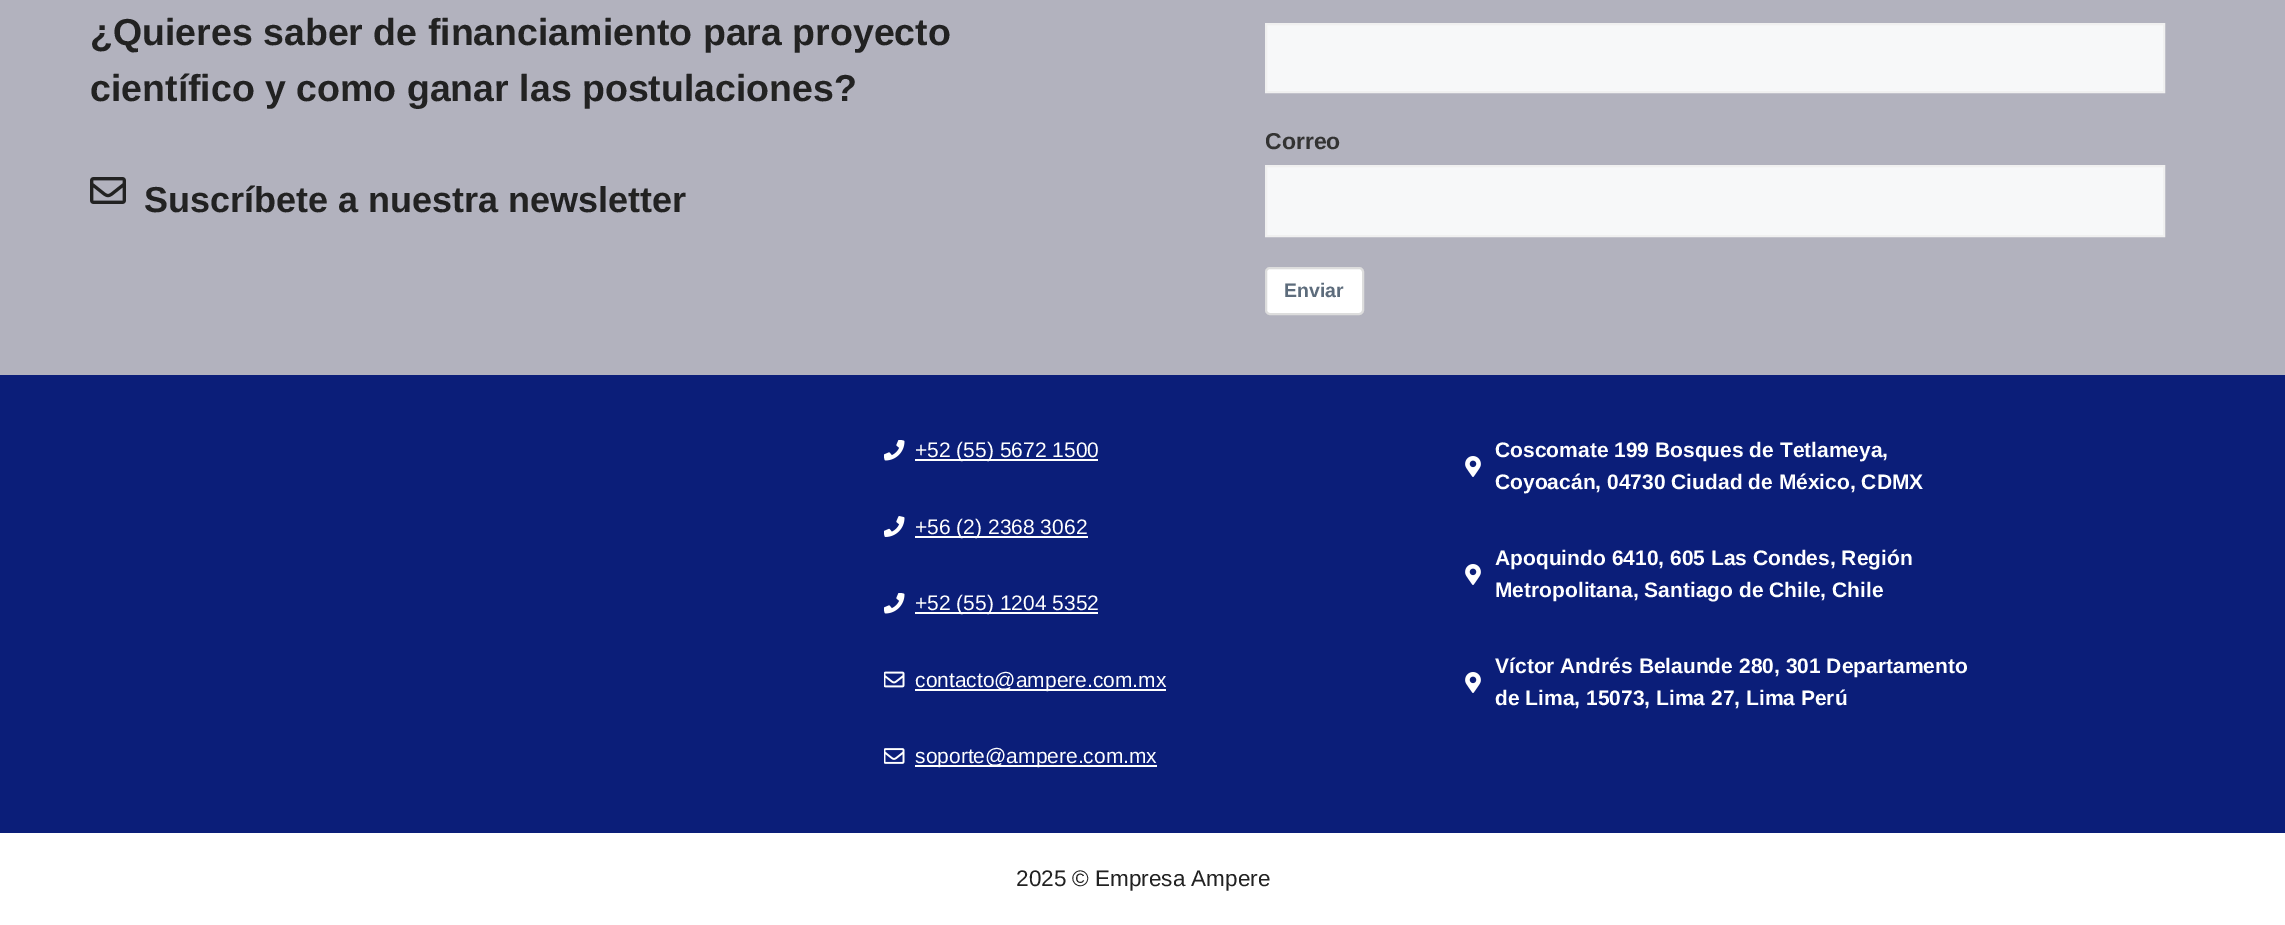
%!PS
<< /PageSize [2285 925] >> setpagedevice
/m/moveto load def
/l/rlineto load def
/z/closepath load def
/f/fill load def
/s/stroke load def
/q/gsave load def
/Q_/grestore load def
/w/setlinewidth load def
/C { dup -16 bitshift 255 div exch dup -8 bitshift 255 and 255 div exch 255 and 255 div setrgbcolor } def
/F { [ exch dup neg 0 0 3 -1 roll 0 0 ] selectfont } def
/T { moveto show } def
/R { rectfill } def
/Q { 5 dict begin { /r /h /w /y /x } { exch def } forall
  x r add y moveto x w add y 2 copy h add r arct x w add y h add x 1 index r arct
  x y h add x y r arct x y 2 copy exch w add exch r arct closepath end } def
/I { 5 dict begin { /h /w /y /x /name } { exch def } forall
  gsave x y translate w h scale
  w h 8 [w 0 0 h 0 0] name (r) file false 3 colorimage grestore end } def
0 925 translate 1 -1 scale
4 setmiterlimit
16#B2B2BE C
0 0 2285 925 R
/LiberationSans-Bold 37.5 F
16#222222 C
(¿Quieres saber de financiamiento para proyecto) 90 45 T
(científico y como ganar las postulaciones?) 90 101 T
(1.rgb) 90 177 36 27 I
/LiberationSans-Bold 36 F
(Suscríbete a nuestra newsletter) 144 212 T
16#F7F8F9 C
1266 24 m 898 0 l 0 68 l -898 0 l z q f Q_
16#F0F0F0 C
2 w
s
/LiberationSans-Bold 23 F
16#333333 C
(Correo) 1265 149 T
16#F7F8F9 C
1266 166 m 898 0 l 0 70 l -898 0 l z q f Q_
16#F0F0F0 C
s
16#FFFFFF C
1266 268 97 46 4 Q q f Q_
16#DDDDDD C
s
/LiberationSans-Bold 19.5 F
16#5D6C7C C
(Enviar) 1284 297 T
16#0B1E79 C
0 375 2285 458 R
(2.rgb) 884 440 21 21 I
16#FFFFFF C
915 459 183 2 R
/LiberationSans-Regular 21 F
(+52 \(55\) 5672 1500) 915 457 T
(3.rgb) 884 516 21 21 I
915 536 173 2 R
(+56 \(2\) 2368 3062) 915 534 T
(2.rgb) 884 593 21 21 I
915 612 183 2 R
(+52 \(55\) 1204 5352) 915 610 T
(4.rgb) 884 671 21 17 I
915 689 251 2 R
(contacto@ampere.com.mx) 915 687 T
(5.rgb) 884 748 21 16 I
915 765 242 2 R
(soporte@ampere.com.mx) 915 763 T
(6.rgb) 1465 456 16 21 I
/LiberationSans-Bold 21 F
(Coscomate 199 Bosques de Tetlameya,) 1495 457 T
(Coyoacán, 04730 Ciudad de México, CDMX) 1495 489 T
(6.rgb) 1465 564 16 21 I
(Apoquindo 6410, 605 Las Condes, Región) 1495 565 T
(Metropolitana, Santiago de Chile, Chile) 1495 597 T
(6.rgb) 1465 672 16 21 I
(Víctor Andrés Belaunde 280, 301 Departamento) 1495 673 T
(de Lima, 15073, Lima 27, Lima Perú) 1495 705 T
0 833 2285 92 R
/LiberationSans-Regular 22.5 F
16#222222 C
(2025 © Empresa Ampere) 1016 886 T
showpage
